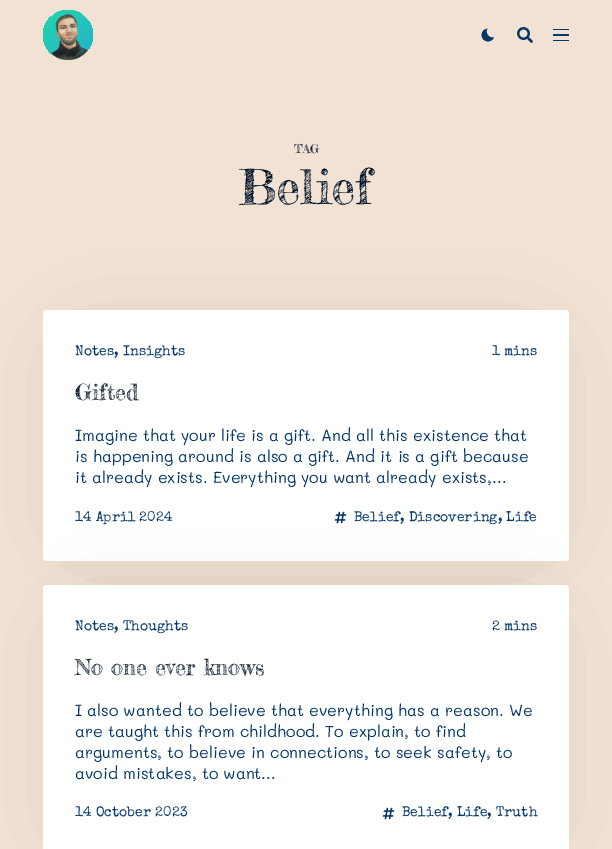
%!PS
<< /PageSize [612 849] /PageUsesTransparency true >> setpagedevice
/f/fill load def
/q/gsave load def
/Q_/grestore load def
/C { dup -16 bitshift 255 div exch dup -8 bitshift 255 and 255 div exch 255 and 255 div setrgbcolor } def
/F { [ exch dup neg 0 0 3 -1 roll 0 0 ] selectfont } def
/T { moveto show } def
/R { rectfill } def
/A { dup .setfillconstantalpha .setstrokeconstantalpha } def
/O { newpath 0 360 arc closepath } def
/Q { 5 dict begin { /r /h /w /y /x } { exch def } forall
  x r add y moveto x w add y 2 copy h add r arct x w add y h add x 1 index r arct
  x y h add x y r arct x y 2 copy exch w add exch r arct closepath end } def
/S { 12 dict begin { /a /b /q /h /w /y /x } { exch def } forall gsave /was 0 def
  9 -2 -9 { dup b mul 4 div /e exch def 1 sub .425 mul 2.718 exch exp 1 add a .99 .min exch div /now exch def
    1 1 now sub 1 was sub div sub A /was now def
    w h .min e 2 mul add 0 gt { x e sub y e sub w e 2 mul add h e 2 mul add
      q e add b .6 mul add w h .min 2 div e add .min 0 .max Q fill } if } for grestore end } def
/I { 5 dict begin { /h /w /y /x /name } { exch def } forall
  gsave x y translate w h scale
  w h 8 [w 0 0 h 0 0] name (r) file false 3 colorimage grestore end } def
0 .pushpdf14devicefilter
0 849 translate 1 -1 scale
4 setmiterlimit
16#F1E2D3 C
0 0 612 849 R
q 68 35 25 O clip newpath
<< /ShadingType 2 /ColorSpace /DeviceRGB /Coords [243 210 43 10] /Extend [true true] /Function << /FunctionType 3 /Domain [0 1] /Functions [<< /FunctionType 2 /Domain [0 1] /C0 [.933 .467 .322] /C1 [.906 .235 .494] /N 1 >> << /FunctionType 2 /Domain [0 1] /C0 [.906 .235 .494] /C1 [.137 .651 .835] /N 1 >> << /FunctionType 2 /Domain [0 1] /C0 [.137 .651 .835] /C1 [.137 .835 .671] /N 1 >>] /Bounds [.33 .67] /Encode [0 1 0 1 0 1] >> >> shfill Q_
(1.rgb) 51 14 38 46 I
(2.rgb) 481 28 14 14 I
(3.rgb) 517 27 16 16 I
16#04376A C
553 29 16 1 .5 Q f
553 34 16 2 1 Q f
553 40 16 1 .5 Q f
/FrederickatheGreat-Regular 12 F
16#011427 C
(TAG) 294 153 T
/FrederickatheGreat-Regular 48 F
(Belief) 239 204 T
16#011426 C
86 360 440 165 0 48 .17 S
16#FFFFFF C
43 310 526 251 4 Q f
/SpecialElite-Regular 14 F
16#04376A C
(Notes, Insights) 75 355 T
(1 mins) 492 355 T
/FrederickatheGreat-Regular 22 F
16#011427 C
(Gifted) 75 400 T
/Mali-Regular 16 F
16#04376A C
(Imagine that your life is a gift. And all this existence that) 75 441 T
(is happening around is also a gift. And it is a gift because) 75 462 T
(it already exists. Everything you want already exists,…) 75 483 T
16#011426 C
86 635 440 185 0 48 .17 S
/SpecialElite-Regular 14 F
16#04376A C
(14 April 2024) 75 521 T
(4.rgb) 334 511 13 13 I
(Belief, Discovering, Life) 354 521 T
16#FFFFFF C
43 585 526 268 4 Q f
16#04376A C
(Notes, Thoughts) 75 630 T
(2 mins) 492 630 T
/FrederickatheGreat-Regular 22 F
16#011427 C
(No one ever knows) 75 675 T
/Mali-Regular 16 F
16#04376A C
(I also wanted to believe that everything has a reason. We) 75 716 T
(are taught this from childhood. To explain, to find) 75 737 T
(arguments, to believe in connections, to seek safety, to) 75 758 T
(avoid mistakes, to want…) 75 779 T
/SpecialElite-Regular 14 F
(14 October 2023) 75 816 T
(5.rgb) 382 807 13 13 I
(Belief, Life, Truth) 402 816 T
.poppdf14devicefilter showpage
